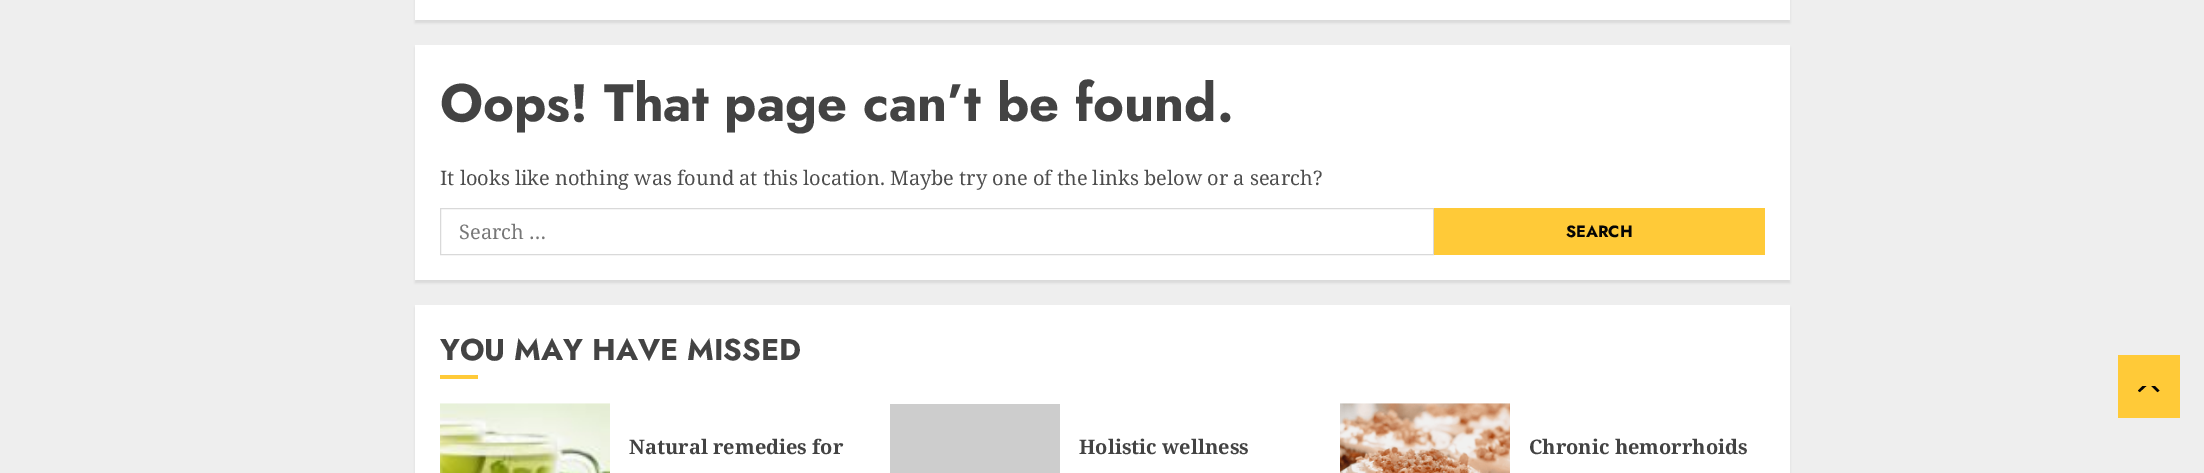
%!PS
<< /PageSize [2204 473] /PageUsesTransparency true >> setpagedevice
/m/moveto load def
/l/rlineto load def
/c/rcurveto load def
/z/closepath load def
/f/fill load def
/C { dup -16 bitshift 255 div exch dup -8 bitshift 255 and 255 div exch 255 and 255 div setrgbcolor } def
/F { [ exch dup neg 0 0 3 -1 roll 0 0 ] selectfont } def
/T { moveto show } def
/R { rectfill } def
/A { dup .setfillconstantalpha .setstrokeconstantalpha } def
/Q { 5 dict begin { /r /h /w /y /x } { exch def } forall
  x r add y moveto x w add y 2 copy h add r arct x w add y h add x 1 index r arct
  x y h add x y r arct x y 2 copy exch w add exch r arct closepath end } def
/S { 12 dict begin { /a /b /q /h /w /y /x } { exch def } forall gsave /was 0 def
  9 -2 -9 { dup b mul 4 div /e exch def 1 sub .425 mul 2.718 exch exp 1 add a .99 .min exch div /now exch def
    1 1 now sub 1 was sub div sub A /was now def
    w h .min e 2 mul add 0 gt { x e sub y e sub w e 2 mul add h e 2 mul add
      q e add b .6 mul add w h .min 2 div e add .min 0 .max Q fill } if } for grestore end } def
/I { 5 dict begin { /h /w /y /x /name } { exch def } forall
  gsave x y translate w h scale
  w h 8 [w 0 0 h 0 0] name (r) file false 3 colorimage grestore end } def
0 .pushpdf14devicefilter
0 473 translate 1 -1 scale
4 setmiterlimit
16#EEEEEE C
0 0 2204 473 R
16#050505 C
415 -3 1375 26 0 1 .08 S
16#FFFFFF C
415 0 1375 20 R
16#050505 C
415 48 1375 235 0 1 .08 S
16#FFFFFF C
415 45 1375 235 R
/Jost-Bold 52.5 F
16#434343 C
(Oops! That page can’t be found.) 440 121 T
/NotoSerif-Regular 20 F
16#4D4D4D C
(It looks like nothing was found at this location. Maybe try one of the links below or a search?) 440 185 T
16#D9D9D9 C
440.5 208.5 993 46 rectstroke
16#777777 C
(Search …) 459 239 T
16#FFCA38 C
1434 208 331 47 R
/Jost-Bold 16.25 F
16#050505 C
(SEARCH) 1566 237 T
415 308 1375 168 0 1 .08 S
16#FFFFFF C
415 305 1375 168 R
/Jost-Bold 30 F
16#434343 C
(YOU MAY HAVE MISSED) 440 360 T
16#FFCA38 C
440 375 38 4 R
(1.rgb) 440 403 170 70 I
/NotoSerif-Bold 20 F
16#434343 C
(Natural remedies for) 629 454 T
16#CDCDCD C
890 404 170 69 R
16#434343 C
(Holistic wellness) 1079 454 T
(2.rgb) 1340 403 170 70 I
(Chronic hemorrhoids) 1529 454 T
16#FFCA38 C
2118 355 62 63 R
16#050505 C
2142.5 392.5 m 12.5 0 l 2 0 3 -.5 4.5 -2 c -4.5 -4.5 l -12.5 0 l -4.5 4.5 l 1 1.5 3 2 4.5 2 c z f
16#FFCA38 C
2161 396 m -25 0 l 13 -12 l z f
.poppdf14devicefilter showpage
